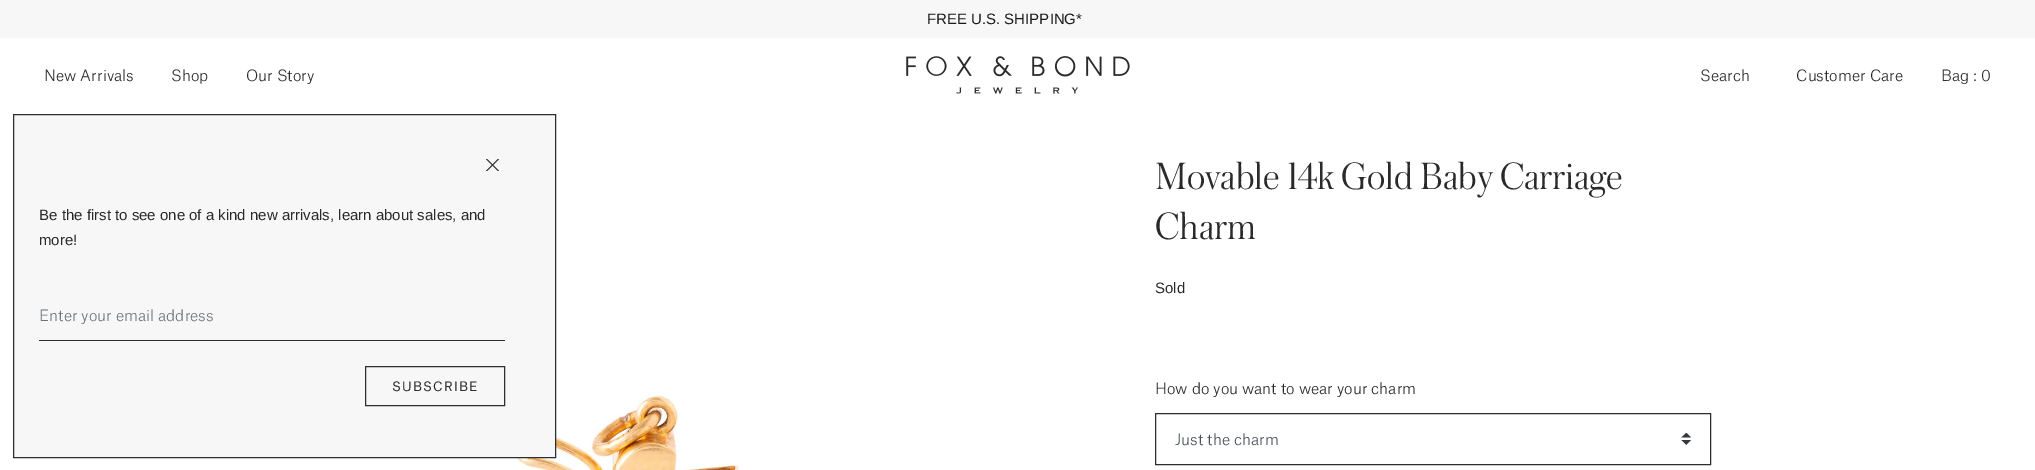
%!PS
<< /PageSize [2035 470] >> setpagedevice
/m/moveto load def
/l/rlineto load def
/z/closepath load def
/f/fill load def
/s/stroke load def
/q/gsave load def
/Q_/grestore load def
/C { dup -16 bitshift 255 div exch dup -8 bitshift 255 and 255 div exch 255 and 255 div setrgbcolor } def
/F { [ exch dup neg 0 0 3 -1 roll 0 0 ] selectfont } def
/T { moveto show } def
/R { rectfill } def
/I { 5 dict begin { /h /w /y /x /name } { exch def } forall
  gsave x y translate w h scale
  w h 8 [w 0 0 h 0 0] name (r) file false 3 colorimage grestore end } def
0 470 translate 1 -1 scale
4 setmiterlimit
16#FFFFFF C
0 0 2035 470 R
16#F7F7F7 C
0 0 2035 38 R
/LiberationSans-Regular 15 F
16#1A1A1A C
(FREE U.S. SHIPPING*) 927 24 T
/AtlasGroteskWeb-Light 15 F
16#2A2A2A C
(New Arrivals) 44 81 T
(Shop) 171 81 T
(Our Story) 246 81 T
(1.rgb) 906 56 224 38 I
(Search) 1700 81 T
(Customer Care) 1796 81 T
(Bag : 0) 1941 81 T
(2.rgb) 514 395 225 75 I
/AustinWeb-ExtraLight 40 F
(Movable 14k Gold Baby Carriage) 1155 189 T
(Charm) 1155 239 T
/LiberationSans-Regular 15 F
(Sold) 1155 293 T
/AtlasGroteskWeb-Light 15 F
(How do you want to wear your charm) 1155 394 T
(3.rgb) 1681 433 10 12 I
16#2E2E2E C
1155.5 413.5 555 51 rectstroke
16#495057 C
(Just the charm) 1175 445 T
16#F7F7F7 C
13.5 114.5 m 542 0 l 0 343 l -542 0 l z q f Q_
16#2E2E2E C
s
(4.rgb) 486 159 13 12 I
/LiberationSans-Regular 15 F
16#2A2A2A C
(Be the first to see one of a kind new arrivals, learn about sales, and) 39 220 T
(more!) 39 245 T
16#2E2E2E C
39 340 466 1 R
/AtlasGroteskWeb-Light 15 F
16#6C757D C
(Enter your email address) 39 321 T
16#2E2E2E C
365.5 366.5 139 39 rectstroke
/AtlasGroteskWeb-Regular 12.5 F
16#2A2A2A C
392 391 m 1.25 0 (SUBSCRIBE) ashow
showpage
